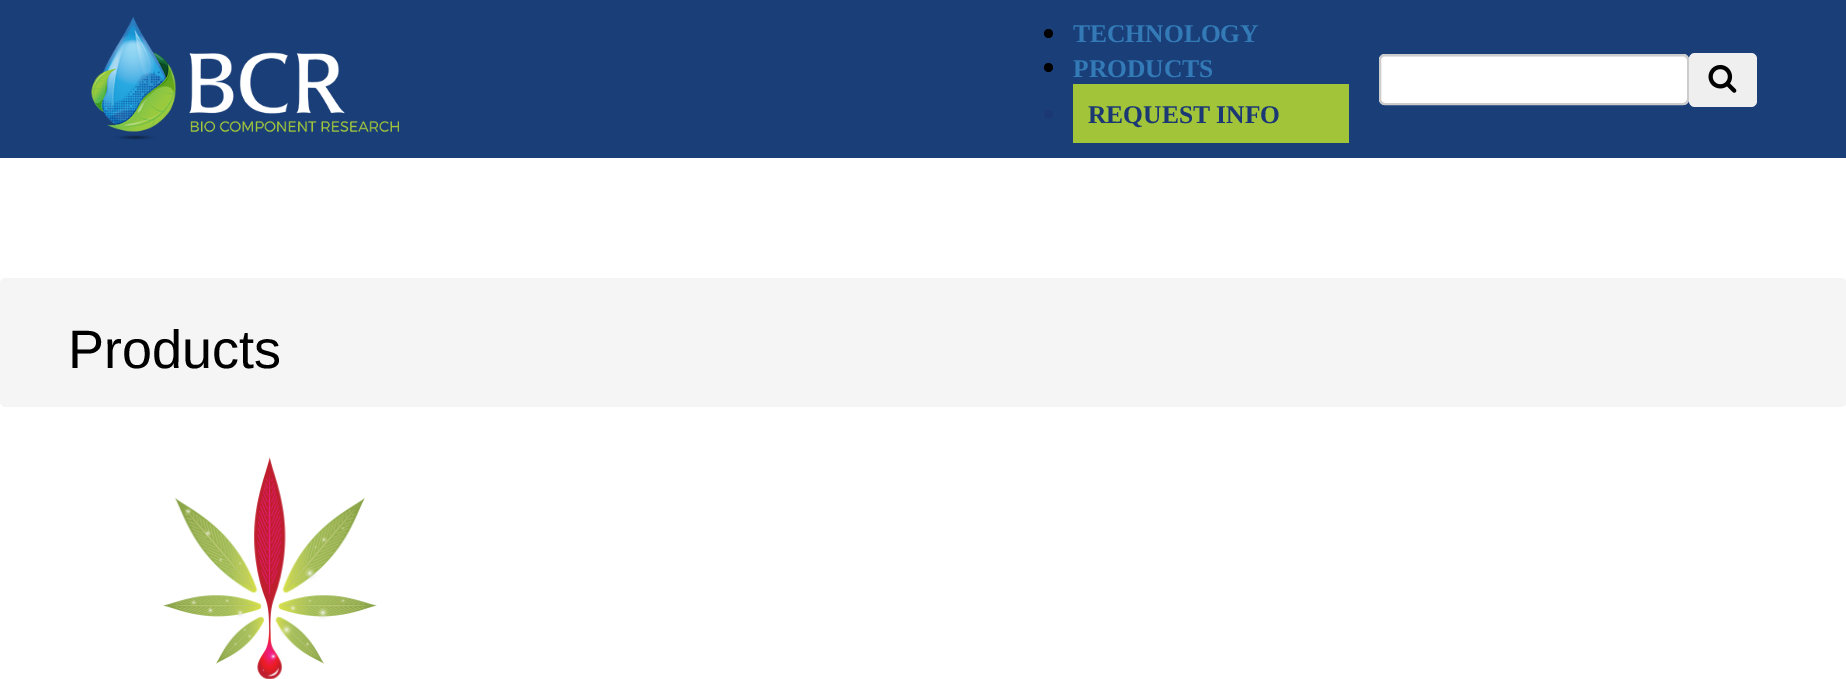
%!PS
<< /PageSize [1846 679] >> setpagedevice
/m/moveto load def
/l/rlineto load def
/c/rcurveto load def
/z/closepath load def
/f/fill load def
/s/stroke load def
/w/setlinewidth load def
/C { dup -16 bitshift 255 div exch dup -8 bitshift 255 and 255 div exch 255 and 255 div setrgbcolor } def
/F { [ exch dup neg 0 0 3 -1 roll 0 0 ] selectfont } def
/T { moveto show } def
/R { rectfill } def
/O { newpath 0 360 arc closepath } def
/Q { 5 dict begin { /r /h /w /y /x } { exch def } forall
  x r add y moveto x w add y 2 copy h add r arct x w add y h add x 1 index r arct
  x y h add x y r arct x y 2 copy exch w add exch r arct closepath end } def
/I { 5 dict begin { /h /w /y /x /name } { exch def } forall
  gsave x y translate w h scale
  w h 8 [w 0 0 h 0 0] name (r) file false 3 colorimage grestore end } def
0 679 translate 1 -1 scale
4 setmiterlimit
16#FFFFFF C
0 0 1846 679 R
16#193E78 C
0 0 1846 158 R
(1.rgb) 91 16 308 124 I
16#000000 C
1048.5 33.5 4.5 O f
/LiberationSerif-Bold 25.5 F
16#337AB7 C
(TECHNOLOGY) 1073 42 T
16#000000 C
1048.5 67.5 4.5 O f
16#337AB7 C
(PRODUCTS) 1073 77 T
16#A2C438 C
1073 84 276 59 R
16#1B3875 C
1048.5 114.5 4.5 O f
(REQUEST INFO) 1088 123 T
16#FFFFFF C
1379 54 310 51 6 Q f
16#ECECEC C
1384 57 m 299 0 l 2 0 5 2 5 5 c 0 -3 -2 -6 -5 -6 c -298 0 l -3 0 -5 3 -5 6 c 0 -3 2 -5 4 -5 c z f
16#CCCCCC C
2 w
1380 55 308 49 5 Q s
16#EFEFEF C
1689 53 68 54 6 Q f
(2.rgb) 1708 64 29 29 I
16#F5F5F5 C
0 278 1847 129 6 Q f
/LiberationSans-Regular 54 F
16#000000 C
(Products) 68 368 T
(3.rgb) 163 457 214 222 I
showpage
